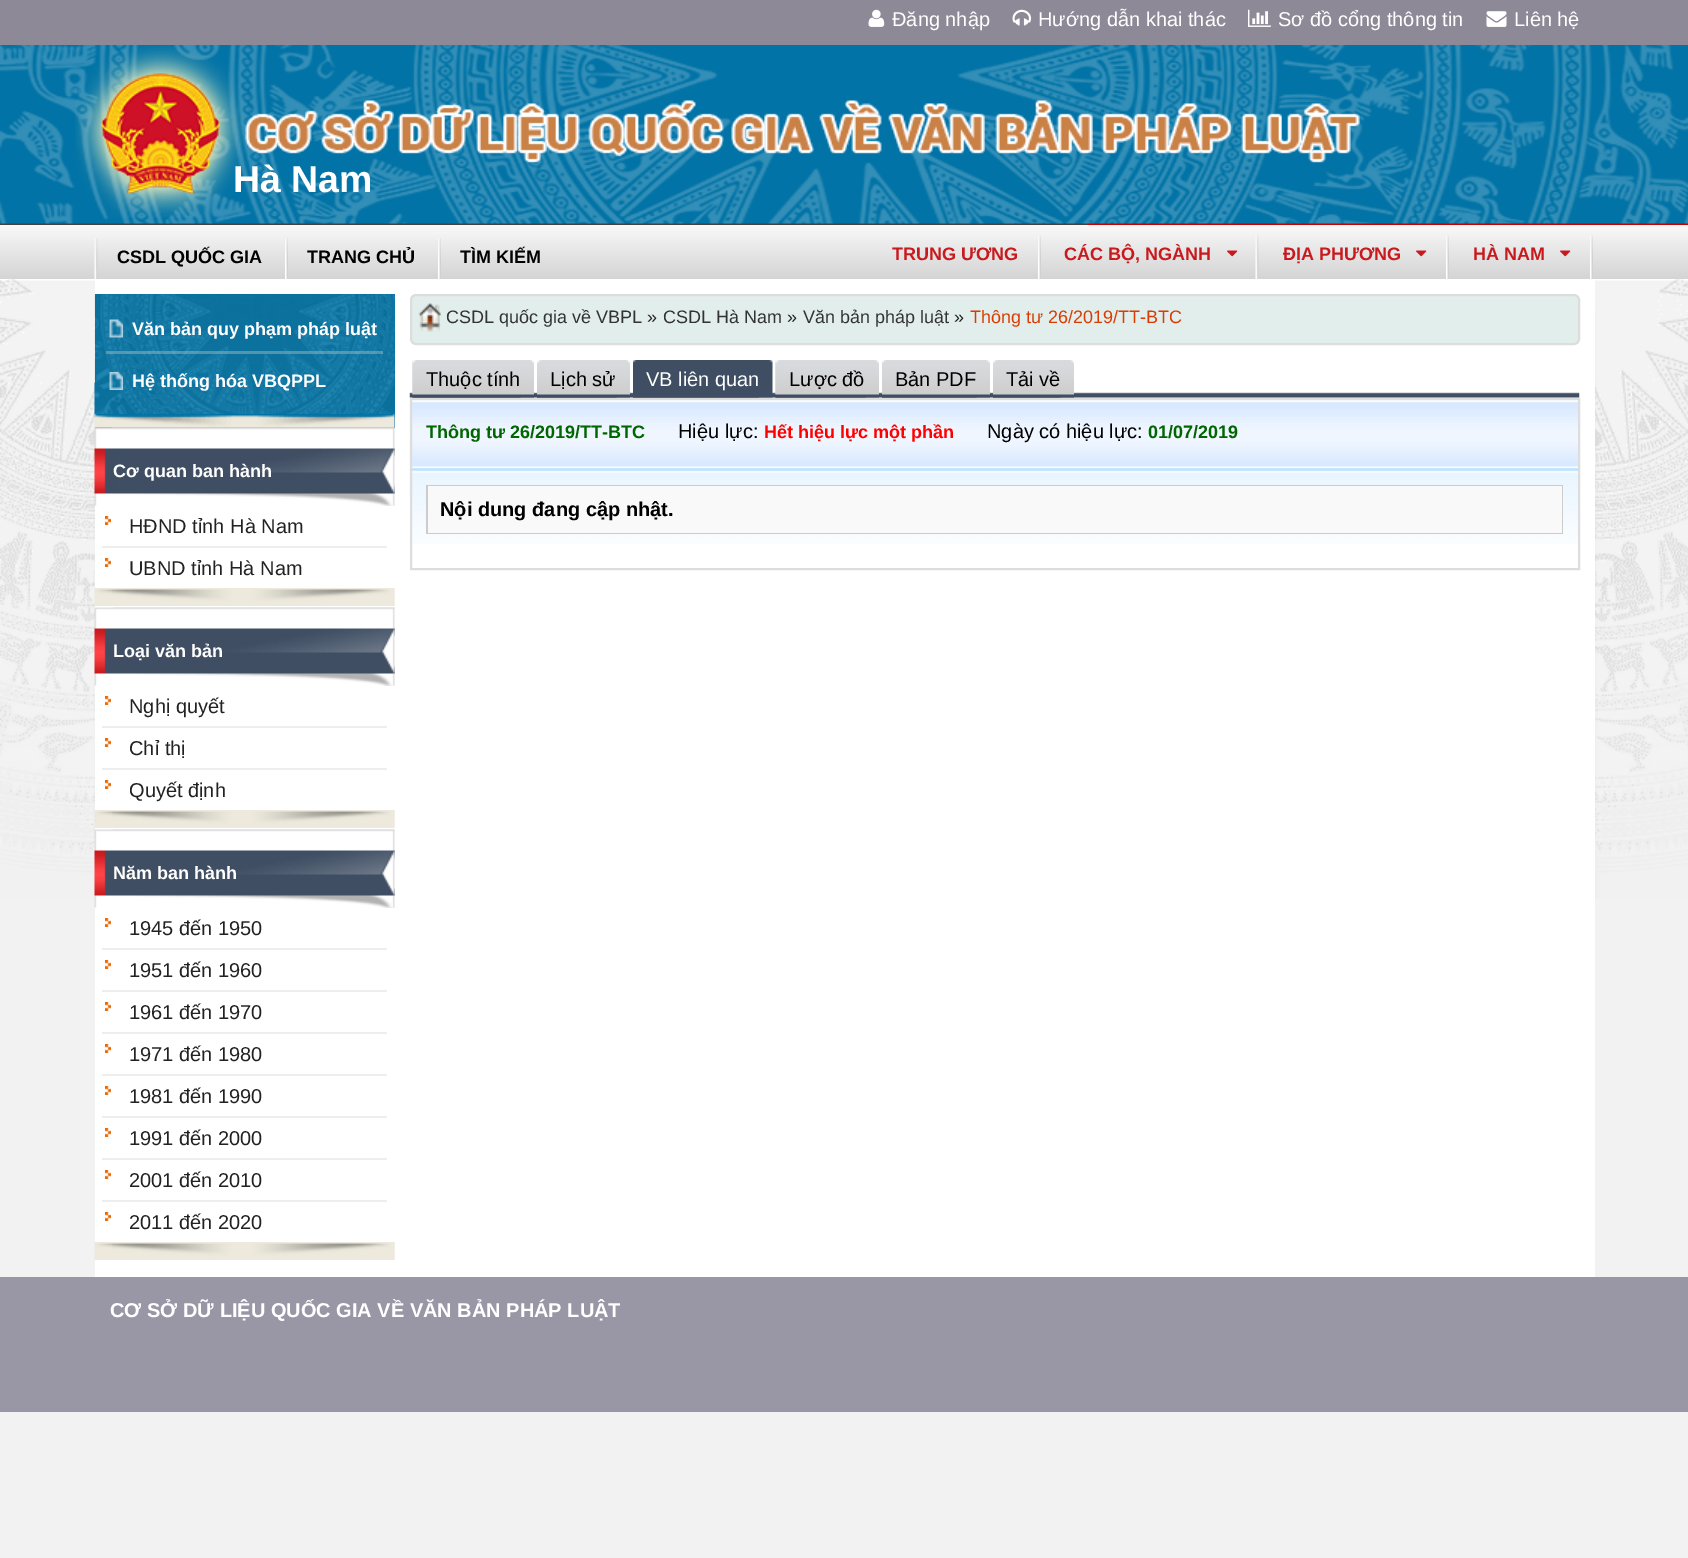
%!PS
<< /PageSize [1688 1558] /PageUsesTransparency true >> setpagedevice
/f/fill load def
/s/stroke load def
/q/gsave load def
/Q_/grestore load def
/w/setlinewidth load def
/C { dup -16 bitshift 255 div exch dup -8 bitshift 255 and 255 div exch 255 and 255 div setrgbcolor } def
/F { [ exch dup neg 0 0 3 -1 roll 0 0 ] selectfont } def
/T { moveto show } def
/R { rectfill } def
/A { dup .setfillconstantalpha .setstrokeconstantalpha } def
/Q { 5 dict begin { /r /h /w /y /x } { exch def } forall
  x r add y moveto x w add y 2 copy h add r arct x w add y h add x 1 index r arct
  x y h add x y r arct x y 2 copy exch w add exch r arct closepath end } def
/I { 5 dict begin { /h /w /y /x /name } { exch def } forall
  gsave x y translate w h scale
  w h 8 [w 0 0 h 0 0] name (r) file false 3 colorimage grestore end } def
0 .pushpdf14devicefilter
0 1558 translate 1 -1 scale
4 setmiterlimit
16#F2F2F2 C
0 0 1688 1558 R
16#8E8997 C
0 0 1688 45 R
(1.rgb) 868 9 17 18 I
/LiberationSans-Regular 20 F
16#FFFFFF C
(Đăng nhập) 892 26 T
(2.rgb) 1012 9 20 17 I
(Hướng dẫn khai thác) 1038 26 T
(3.rgb) 1248 9 23 18 I
(Sơ đồ cổng thông tin) 1278 26 T
(4.rgb) 1486 11 21 16 I
(Liên hệ) 1514 26 T
(5.rgb) 0 45 1688 180 I
(6.rgb) 75 45 1285 173 I
/LiberationSans-Bold 37.5 F
(Hà Nam) 233 192 T
(7.rgb) 0 225 1688 54 I
(8.rgb) 94 238 4 41 I
/LiberationSans-Bold 18 F
16#000000 C
(CSDL QUỐC GIA) 117 263 T
(9.rgb) 285 238 3 41 I
(TRANG CHỦ) 307 263 T
(9.rgb) 438 238 3 41 I
(TÌM KIẾM) 460 263 T
(10.rgb) 1038 235 3 44 I
16#C81A1D C
(TRUNG ƯƠNG) 892 260 T
(11.rgb) 1255 235 4 44 I
(CÁC BỘ, NGÀNH) 1064 260 T
(12.rgb) 1227 250 11 7 I
(13.rgb) 1446 235 3 44 I
(ĐỊA PHƯƠNG) 1283 260 T
(12.rgb) 1416 250 11 7 I
(13.rgb) 1590 235 3 44 I
(HÀ NAM) 1473 260 T
(12.rgb) 1560 250 11 7 I
(14.rgb) 0 279 1688 620 I
16#FFFFFF C
95 280 1500 997 R
16#0173A6 C
95 294 300 134 R
(15.rgb) 94 382 301 46 I
(16.rgb) 94 294 301 120 I
0.43 A
16#ADC5C2 C
106 351 277 3 R
1 A
(17.rgb) 109 319 14 19 I
16#FFFFFF C
(Văn bản quy phạm pháp luật) 132 335 T
(18.rgb) 109 372 14 18 I
(Hệ thống hóa VBQPPL) 132 387 T
(19.rgb) 94 427 301 79 I
(20.rgb) 112 427 283 79 I
(Cơ quan ban hành) 113 477 T
(21.rgb) 105 516 6 9 I
16#EEEEEE C
102 546 285 2 R
/LiberationSans-Regular 20 F
16#222222 C
(HĐND tỉnh Hà Nam) 129 533 T
(21.rgb) 105 558 6 9 I
(UBND tỉnh Hà Nam) 129 575 T
(22.rgb) 94 588 301 18 I
(23.rgb) 112 588 283 18 I
(24.rgb) 94 607 301 79 I
(25.rgb) 113 607 282 79 I
/LiberationSans-Bold 18 F
16#FFFFFF C
(Loại văn bản) 113 657 T
(21.rgb) 105 696 6 9 I
16#EEEEEE C
102 726 285 2 R
/LiberationSans-Regular 20 F
16#222222 C
(Nghị quyết) 129 713 T
(21.rgb) 105 738 6 9 I
16#EEEEEE C
102 768 285 2 R
16#222222 C
(Chỉ thị) 129 755 T
(21.rgb) 105 780 6 9 I
(Quyết định) 129 797 T
(26.rgb) 94 810 301 18 I
(23.rgb) 112 810 283 18 I
(27.rgb) 94 829 301 79 I
(25.rgb) 113 829 282 79 I
/LiberationSans-Bold 18 F
16#FFFFFF C
(Năm ban hành) 113 879 T
(21.rgb) 105 918 6 9 I
16#EEEEEE C
102 948 285 2 R
/LiberationSans-Regular 20 F
16#222222 C
(1945 đến 1950) 129 935 T
(21.rgb) 105 960 6 9 I
16#EEEEEE C
102 990 285 2 R
16#222222 C
(1951 đến 1960) 129 977 T
(21.rgb) 105 1002 6 9 I
16#EEEEEE C
102 1032 285 2 R
16#222222 C
(1961 đến 1970) 129 1019 T
(21.rgb) 105 1044 6 9 I
16#EEEEEE C
102 1074 285 2 R
16#222222 C
(1971 đến 1980) 129 1061 T
(21.rgb) 105 1086 6 9 I
16#EEEEEE C
102 1116 285 2 R
16#222222 C
(1981 đến 1990) 129 1103 T
(21.rgb) 105 1128 6 9 I
16#EEEEEE C
102 1158 285 2 R
16#222222 C
(1991 đến 2000) 129 1145 T
(21.rgb) 105 1170 6 9 I
16#EEEEEE C
102 1200 285 2 R
16#222222 C
(2001 đến 2010) 129 1187 T
(21.rgb) 105 1212 6 9 I
(2011 đến 2020) 129 1229 T
(28.rgb) 94 1242 301 18 I
(23.rgb) 112 1242 283 18 I
16#E1EEEB C
411 295 1168 49 5 Q q f Q_
16#DDDDDD C
2 w
s
(29.rgb) 418 303 23 29 I
/LiberationSans-Regular 18 F
16#333333 C
(CSDL quốc gia về VBPL) 446 323 T
16#222222 C
(») 647 323 T
16#333333 C
(CSDL Hà Nam) 663 323 T
16#222222 C
(») 787 323 T
16#333333 C
(Văn bản pháp luật) 803 323 T
16#222222 C
(») 954 323 T
16#D93B02 C
(Thông tư 26/2019/TT-BTC) 970 323 T
(30.rgb) 409 392 1171 6 I
(31.rgb) 412 360 122 38 I
(32.rgb) 412 360 109 38 I
/LiberationSans-Regular 20 F
16#000000 C
(Thuộc tính) 426 386 T
(33.rgb) 537 360 93 38 I
(34.rgb) 537 360 80 38 I
(Lịch sử) 550 386 T
(35.rgb) 633 360 140 38 I
(36.rgb) 633 360 126 38 I
16#FFFFFF C
(VB liên quan) 646 386 T
(37.rgb) 775 360 104 38 I
(38.rgb) 775 360 91 38 I
16#000000 C
(Lược đồ) 789 386 T
(39.rgb) 882 360 108 38 I
(40.rgb) 882 360 95 38 I
(Bản PDF) 895 386 T
(41.rgb) 993 360 81 38 I
(42.rgb) 993 360 68 38 I
(Tải về) 1006 386 T
(43.rgb) 409 401 1169 143 I
16#DDDDDD C
411 399 1168 170 rectstroke
/LiberationSans-Bold 18 F
16#006600 C
(Thông tư 26/2019/TT-BTC) 426 438 T
/LiberationSans-Regular 20 F
16#000000 C
(Hiệu lực:) 678 438 T
/LiberationSans-Bold 18 F
16#FF0000 C
(Hết hiệu lực một phần) 764 438 T
/LiberationSans-Regular 20 F
16#000000 C
(Ngày có hiệu lực:) 987 438 T
/LiberationSans-Bold 18 F
16#006600 C
(01/07/2019) 1148 438 T
16#CCCCCC C
426 485 1137 49 R
16#F9F9F9 C
428 486 1134 47 R
/LiberationSans-Bold 20 F
16#000000 C
(Nội dung đang cập nhật.) 440 516 T
16#9996A6 C
0 1277 1688 135 R
16#FFFFFF C
(CƠ SỞ DỮ LIỆU QUỐC GIA VỀ VĂN BẢN PHÁP LUẬT) 110 1317 T
.poppdf14devicefilter showpage
